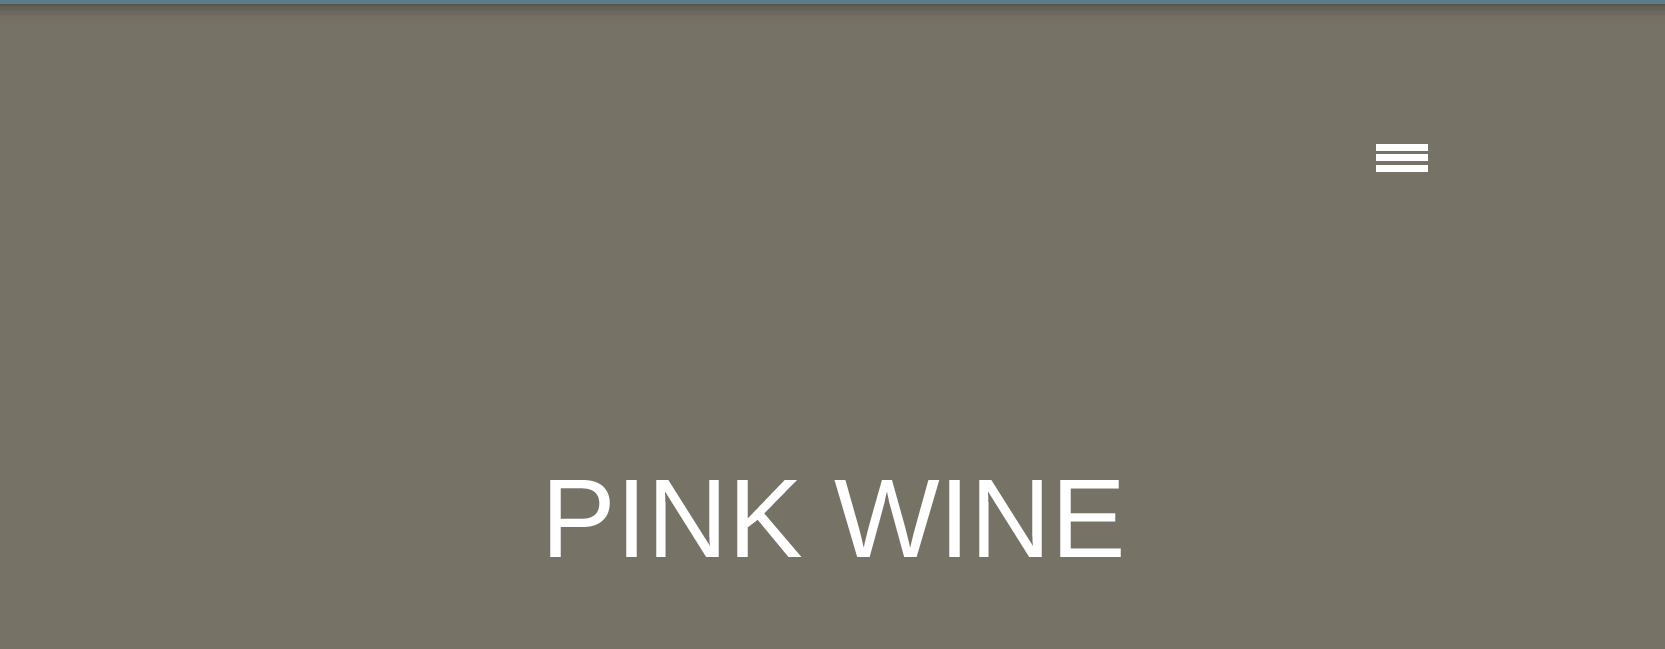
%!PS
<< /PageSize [1665 649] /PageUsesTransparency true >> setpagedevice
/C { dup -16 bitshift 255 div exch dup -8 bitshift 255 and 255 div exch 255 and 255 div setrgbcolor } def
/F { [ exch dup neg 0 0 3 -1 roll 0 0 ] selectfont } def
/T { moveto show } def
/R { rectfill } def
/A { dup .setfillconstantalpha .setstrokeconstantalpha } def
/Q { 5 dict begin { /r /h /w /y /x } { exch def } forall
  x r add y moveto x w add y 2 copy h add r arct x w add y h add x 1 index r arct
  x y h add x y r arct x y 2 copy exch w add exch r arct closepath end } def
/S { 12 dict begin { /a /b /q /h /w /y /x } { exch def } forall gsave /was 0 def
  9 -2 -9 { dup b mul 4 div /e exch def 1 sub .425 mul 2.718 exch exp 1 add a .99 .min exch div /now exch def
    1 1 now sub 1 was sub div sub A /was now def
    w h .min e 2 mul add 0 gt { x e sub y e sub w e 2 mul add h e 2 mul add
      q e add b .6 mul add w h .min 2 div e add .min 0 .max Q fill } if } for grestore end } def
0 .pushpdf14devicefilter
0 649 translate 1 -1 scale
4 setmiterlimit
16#767266 C
0 0 1665 649 R
16#000000 C
0 0 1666 4 0 9 .5 S
16#5A7E89 C
0 0 1665 4 R
16#FFFFFF C
1376 144 52 7 R
1376 154 52 7 R
1376 165 52 7 R
/LiberationSans-Regular 112 F
(PINK WINE) 541 557 T
.poppdf14devicefilter showpage
